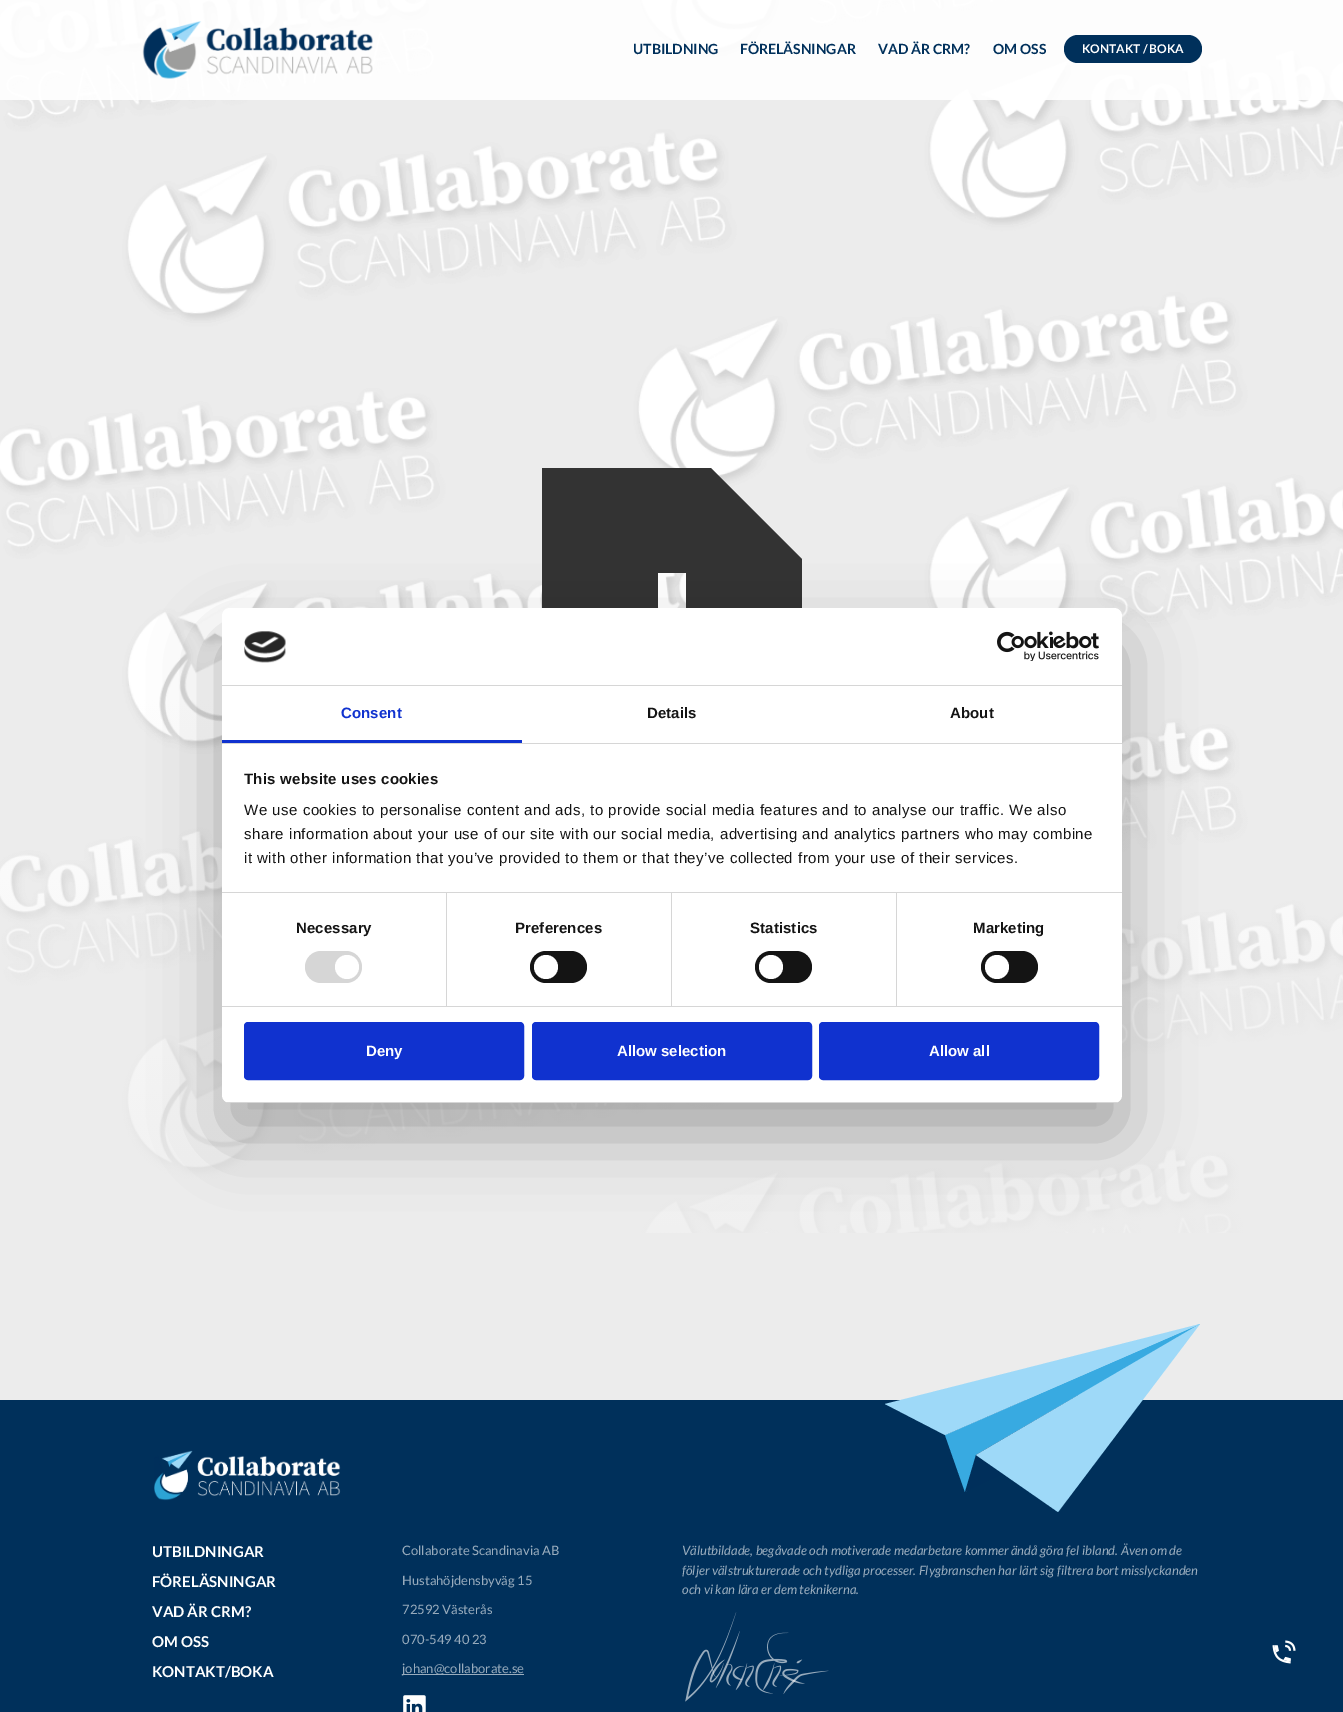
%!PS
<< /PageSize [1343 1712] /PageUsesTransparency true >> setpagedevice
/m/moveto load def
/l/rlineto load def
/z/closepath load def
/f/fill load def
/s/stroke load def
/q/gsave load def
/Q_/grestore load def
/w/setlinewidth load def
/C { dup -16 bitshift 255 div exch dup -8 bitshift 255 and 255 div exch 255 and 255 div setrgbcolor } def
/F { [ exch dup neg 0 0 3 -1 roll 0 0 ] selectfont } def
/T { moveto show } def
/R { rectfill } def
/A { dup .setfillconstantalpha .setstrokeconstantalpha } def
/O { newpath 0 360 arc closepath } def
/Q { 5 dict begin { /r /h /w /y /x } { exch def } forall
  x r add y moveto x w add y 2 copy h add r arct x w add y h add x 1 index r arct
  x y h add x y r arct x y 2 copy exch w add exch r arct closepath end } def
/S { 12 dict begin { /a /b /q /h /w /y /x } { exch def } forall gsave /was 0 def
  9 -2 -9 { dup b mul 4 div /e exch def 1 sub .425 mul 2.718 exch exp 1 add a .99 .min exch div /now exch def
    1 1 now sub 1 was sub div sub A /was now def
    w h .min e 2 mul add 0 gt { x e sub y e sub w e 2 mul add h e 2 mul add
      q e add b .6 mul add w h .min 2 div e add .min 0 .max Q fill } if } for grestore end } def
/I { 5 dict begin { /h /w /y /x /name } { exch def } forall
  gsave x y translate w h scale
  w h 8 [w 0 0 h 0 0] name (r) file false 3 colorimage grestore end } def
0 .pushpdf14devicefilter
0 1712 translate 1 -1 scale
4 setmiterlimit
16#ECECEC C
0 0 1343 1712 R
(1.rgb) 0 0 1343 1233 I
16#333333 C
542 468 m 169 0 l 91 91 l 0 235 l -260 0 l z 658 573 m 28 0 l 0 83 l -28 0 l z 658 684 m 28 0 l 0 27 l -28 0 l z eofill
0.9 A
16#FFFFFF C
0 0 1343 100 R
1 A
(2.rgb) 142 21 231 58 I
/Lato-Bold 14 F
16#00305B C
(UTBILDNING) 633 54 T
(FÖRELÄSNINGAR) 740 54 T
(VAD ÄR CRM?) 878 54 T
(OM OSS) 993 54 T
1064 35 138 28 14 Q f
/Lato-Bold 12 F
16#FFFFFF C
(KONTAKT / BOKA) 1082 53 T
16#000000 C
222 640 900 495 8 34 .3 S
16#FFFFFF C
222 608 900 495 8 Q f
16#D6D6D6 C
222 685 900 1 R
(3.rgb) 244 631 42 32 I
(4.rgb) 997 631 102 30 I
222 743 900 1 R
16#1032CF C
222 740 300 3 R
/LiberationSans-Bold 15 F
341 718 m .1 0 (Consent) ashow
16#141414 C
647 718 m .1 0 (Details) ashow
950 718 m .1 0 (About) ashow
16#D6D6D6 C
222 892 900 1 R
16#141414 C
244 784 m .25 0 (This website uses cookies) ashow
/LiberationSans-Regular 15 F
244 815 m .5 0 (We use cookies to personalise content and ads, to provide social media features and to analyse our traffic. We also) ashow
244 839 m .5 0 (share information about your use of our site with our social media, advertising and analytics partners who may combine) ashow
244 863 m .5 0 (it with other information that you’ve provided to them or that they’ve collected from your use of their services.) ashow
16#D6D6D6 C
222 1006 900 1 R
446 893 1 113 R
/LiberationSans-Bold 15 F
16#141414 C
296 933 m .1 0 (Necessary) ashow
16#D6D6D6 C
305 951 57 32 16 Q f
16#FFFFFF C
347 967 12 O f
16#D6D6D6 C
671 893 1 113 R
16#141414 C
515 933 m .1 0 (Preferences) ashow
530 951 57 32 16 Q f
16#FFFFFF C
546 967 12 O f
16#D6D6D6 C
896 893 1 113 R
16#141414 C
750 933 m .1 0 (Statistics) ashow
755 951 57 32 16 Q f
16#FFFFFF C
771 967 12 O f
16#141414 C
973 933 m .1 0 (Marketing) ashow
981 951 57 32 16 Q f
16#FFFFFF C
997 967 12 O f
q
222 608 900 495 8 Q clip newpath
16#D6D6D6 C
222 1102 900 1 R
Q_
16#1032CF C
245 1023 278 56 3 Q q f Q_
2 w
s
16#FFFFFF C
(Deny) 366 1056 T
16#1032CF C
533 1023 278 56 3 Q q f Q_
s
16#FFFFFF C
(Allow selection) 617 1056 T
16#1032CF C
820 1023 278 56 3 Q q f Q_
s
16#FFFFFF C
(Allow all) 929 1056 T
16#00305B C
0 1400 1343 312 R
(5.rgb) 154 1450 187 51 I
16#38AAE1 C
1200 1324 m -255 111 l 20 57 l z f
16#002F5B C
1079 1395 m -103 60 l -11 37 l 110 -53 l z f
16#9ED9F8 C
1200 1324 m -142 188 l -82 -57 l z f
1200 1324 m -315 80 l 60 31 l z f
/Lato-Bold 15 F
16#FFFFFF C
(UTBILDNINGAR) 152 1557 T
(FÖRELÄSNINGAR) 152 1587 T
(VAD ÄR CRM?) 152 1617 T
(OM OSS) 152 1647 T
(KONTAKT/BOKA) 152 1677 T
/Lato-Regular 13 F
16#99ACBD C
(Collaborate Scandinavia AB) 402 1555 T
(Hustahöjdensbyväg 15) 402 1585 T
(72592 Västerås) 402 1614 T
(070-549 40 23) 402 1644 T
402 1674 122 1 R
(johan@collaborate.se) 402 1673 T
(6.rgb) 403 1695 23 17 I
/Lato-Italic 13 F
(Välutbildade, begåvade och motiverade medarbetare kommer ändå göra fel ibland. Även om de) 682 1555 T
(följer välstrukturerade och tydliga processer. Flygbranschen har lärt sig filtrera bort misslyckanden) 682 1575 T
(och vi kan lära er dem teknikerna.) 682 1594 T
(7.rgb) 685 1612 144 90 I
(8.rgb) 1272 1640 24 24 I
.poppdf14devicefilter showpage
